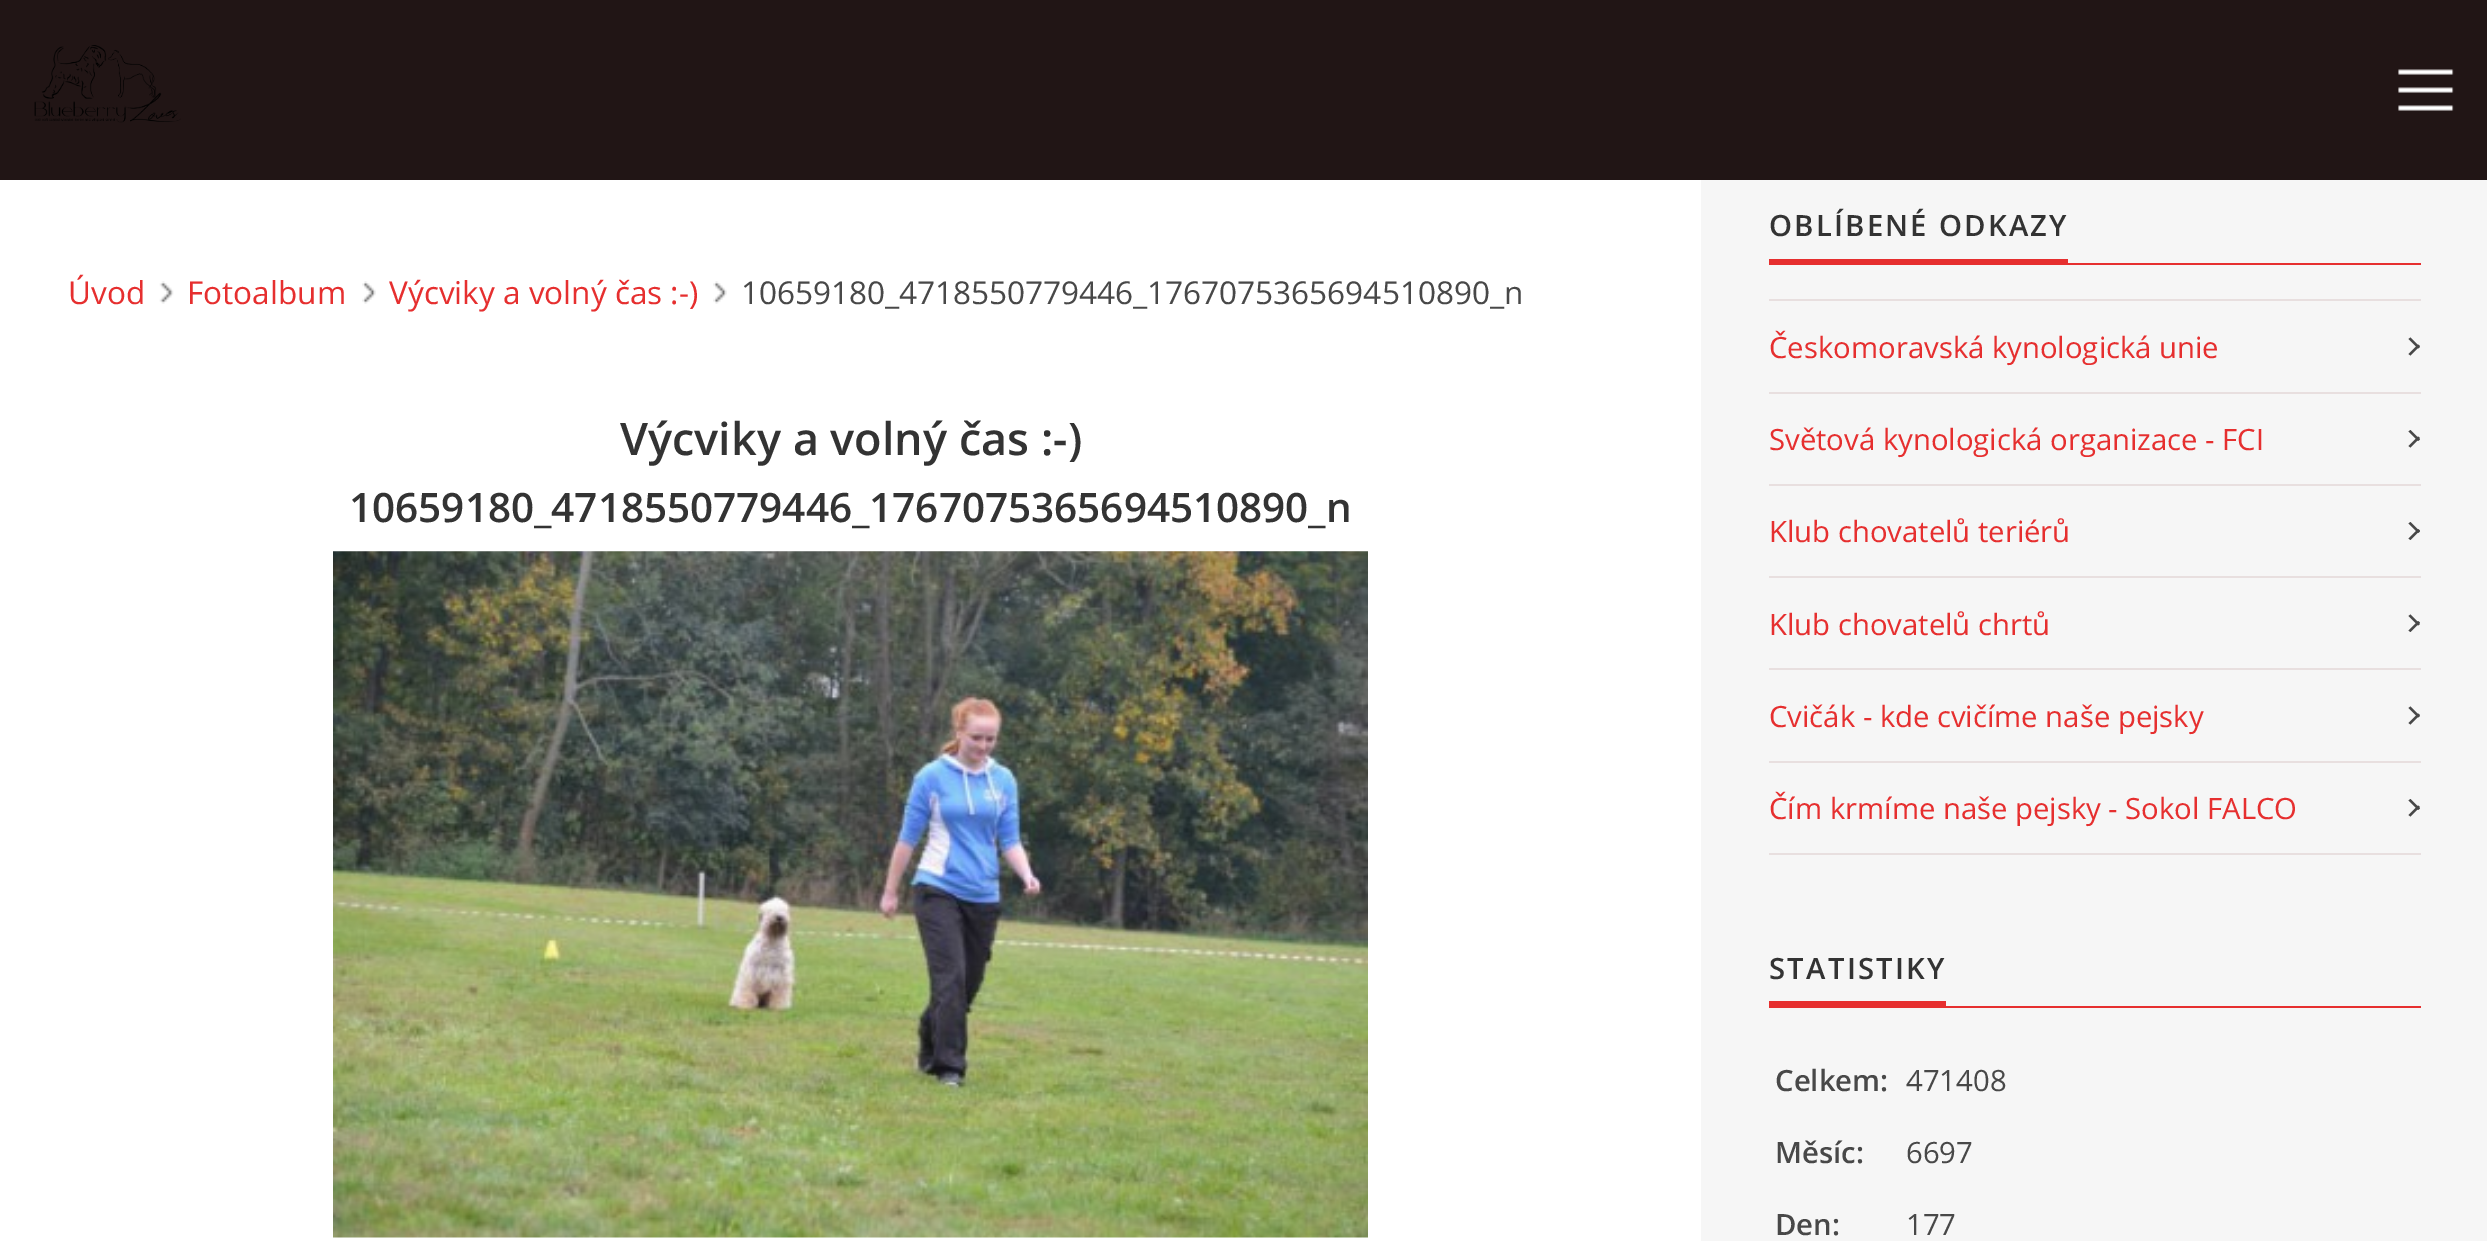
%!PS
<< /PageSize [2487 1241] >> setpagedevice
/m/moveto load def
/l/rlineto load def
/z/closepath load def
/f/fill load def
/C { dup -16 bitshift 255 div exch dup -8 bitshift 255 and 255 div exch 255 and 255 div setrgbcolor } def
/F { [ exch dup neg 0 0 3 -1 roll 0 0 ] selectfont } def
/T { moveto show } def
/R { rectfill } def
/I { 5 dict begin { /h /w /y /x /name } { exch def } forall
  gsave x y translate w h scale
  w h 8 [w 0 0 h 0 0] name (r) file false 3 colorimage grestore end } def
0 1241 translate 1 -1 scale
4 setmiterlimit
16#FFFFFF C
0 0 2487 1241 R
16#211515 C
0 0 2487 180 R
(1.rgb) 34 45 147 78 I
(2.rgb) 2398 69 56 42 I
(3.rgb) 159 281 15 23 I
/OpenSans-Regular 31.5 F
16#E62F2F C
(Úvod) 68 304 T
(4.rgb) 362 281 14 23 I
(Fotoalbum) 187 304 T
(4.rgb) 713 281 14 23 I
(Výcviky a volný čas :-\)) 389 304 T
16#484848 C
(10659180_4718550779446_1767075365694510890_n) 741 304 T
/OpenSans-SemiBold 45 F
16#333333 C
(Výcviky a volný čas :-\)) 620 455 T
/OpenSans-SemiBold 40.5 F
(10659180_4718550779446_1767075365694510890_n) 349 522 T
(5.rgb) 333 551 1035 687 I
16#F6F6F6 C
1701 180 786 1061 R
/OpenSans-SemiBold 29.25 F
16#333333 C
1769 236 m 2.25 0 (OBLÍBENÉ ODKAZY) ashow
16#E62F2F C
1769 259 299 4 R
1769 263 652 2 R
16#E8DFDF C
1769 299 652 2 R
1769 392 652 2 R
/OpenSans-Regular 29.25 F
16#E62F2F C
(Českomoravská kynologická unie) 1769 358 T
16#484848 C
2410.5 337.5 m 9.5 9.5 l -2 1.5 l -9.5 -9.5 l z f
2408.5 354 m 9.5 -9.5 l 2 1.5 l -9.5 9.5 l z f
16#E8DFDF C
1769 484 652 2 R
16#E62F2F C
(Světová kynologická organizace - FCI) 1769 450 T
16#484848 C
2410.5 430 m 9.5 9.5 l -2 1.5 l -9.5 -9.5 l z f
2408.5 446 m 9.5 -9.5 l 2 1.5 l -9.5 9.5 l z f
16#E8DFDF C
1769 576 652 2 R
16#E62F2F C
(Klub chovatelů teriérů) 1769 542 T
16#484848 C
2410.5 522 m 9.5 9.5 l -2 1.5 l -9.5 -9.5 l z f
2408.5 538.5 m 9.5 -9.5 l 2 1.5 l -9.5 9.5 l z f
16#E8DFDF C
1769 668 652 2 R
16#E62F2F C
(Klub chovatelů chrtů) 1769 635 T
16#484848 C
2410.5 614.5 m 9.5 9.5 l -2 1.5 l -9.5 -9.5 l z f
2408.5 630.5 m 9.5 -9.5 l 2 1.5 l -9.5 9.5 l z f
16#E8DFDF C
1769 761 652 2 R
16#E62F2F C
(Cvičák - kde cvičíme naše pejsky) 1769 727 T
16#484848 C
2410.5 706.5 m 9.5 9.5 l -2 1.5 l -9.5 -9.5 l z f
2408.5 723 m 9.5 -9.5 l 2 1.5 l -9.5 9.5 l z f
16#E8DFDF C
1769 853 652 2 R
16#E62F2F C
(Čím krmíme naše pejsky - Sokol FALCO) 1769 819 T
16#484848 C
2410.5 799 m 9.5 9.5 l -2 1.5 l -9.5 -9.5 l z f
2408.5 815 m 9.5 -9.5 l 2 1.5 l -9.5 9.5 l z f
/OpenSans-SemiBold 29.25 F
16#333333 C
1769 979 m 2.25 0 (STATISTIKY) ashow
16#E62F2F C
1769 1001 177 5 R
1769 1006 652 2 R
16#484848 C
(Celkem:) 1775 1091 T
/OpenSans-Regular 29.25 F
(471408) 1906 1091 T
/OpenSans-SemiBold 29.25 F
(Měsíc:) 1775 1163 T
/OpenSans-Regular 29.25 F
(6697) 1906 1163 T
/OpenSans-SemiBold 29.25 F
(Den:) 1775 1235 T
/OpenSans-Regular 29.25 F
(177) 1906 1235 T
showpage
